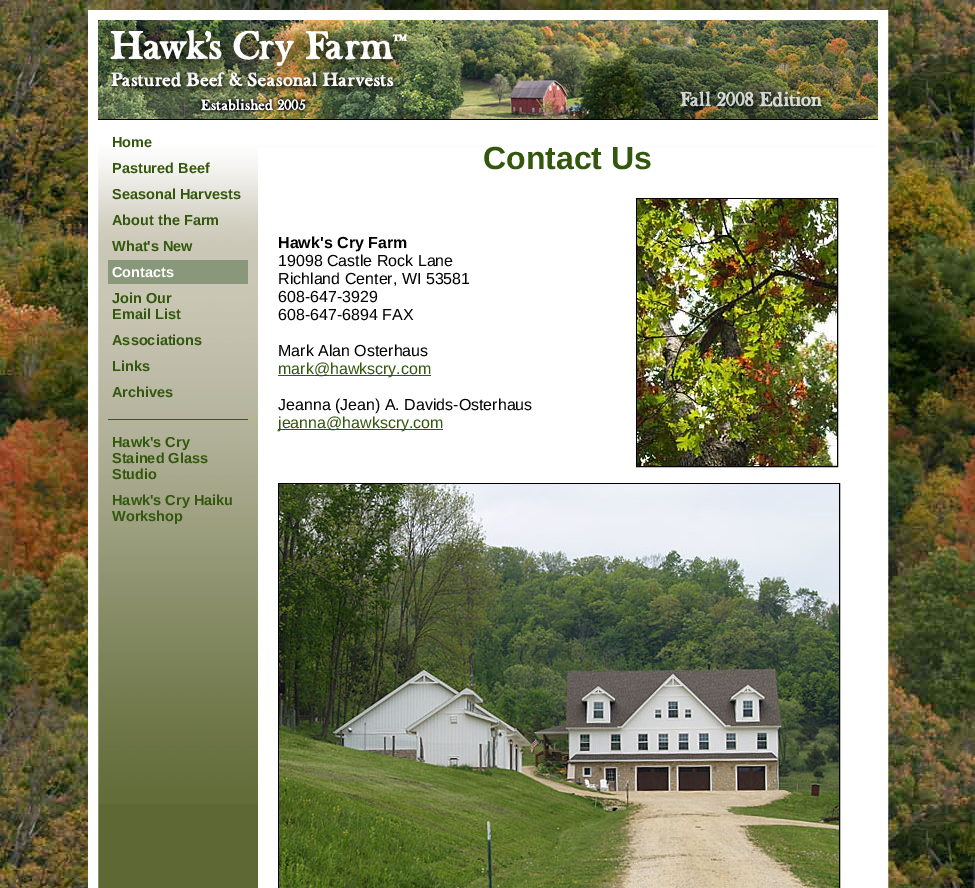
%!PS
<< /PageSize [975 888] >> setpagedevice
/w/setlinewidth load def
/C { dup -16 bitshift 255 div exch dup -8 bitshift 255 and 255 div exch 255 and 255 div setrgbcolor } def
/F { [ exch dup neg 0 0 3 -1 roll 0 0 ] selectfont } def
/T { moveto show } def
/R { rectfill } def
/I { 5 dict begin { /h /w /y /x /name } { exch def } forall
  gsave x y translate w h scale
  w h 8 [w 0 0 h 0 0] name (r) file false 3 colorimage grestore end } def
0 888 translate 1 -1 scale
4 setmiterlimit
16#FFFFFF C
0 0 975 888 R
(1.rgb) 0 0 975 888 I
16#5E6834 C
98 804 160 84 R
(2.rgb) 98 120 780 684 I
16#FFFFFF C
10 w
93 15 790 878 rectstroke
(3.rgb) 98 20 780 100 I
/LiberationSans-Bold 14.5 F
16#32570D C
(Home) 112 147 T
(Pastured Beef) 112 173 T
(Seasonal Harvests) 112 199 T
(About the Farm) 112 225 T
(What's New) 112 251 T
16#89987A C
108 260 140 24 R
16#FFFFFF C
(Contacts) 112 277 T
16#32570D C
(Join Our) 112 303 T
(Email List) 112 319 T
(Associations) 112 345 T
(Links) 112 371 T
(Archives) 112 397 T
16#3A455E C
108 419 140 1 R
16#32570D C
(Hawk's Cry) 112 447 T
(Stained Glass) 112 463 T
(Studio) 112 479 T
(Hawk's Cry Haiku) 112 505 T
(Workshop) 112 521 T
16#FFFFFF C
258 148 620 740 R
/LiberationSans-Bold 32 F
16#32570D C
(Contact Us) 483 169 T
/LiberationSans-Bold 16 F
16#000000 C
(Hawk's Cry Farm) 278 248 T
/LiberationSans-Regular 16 F
(19098 Castle Rock Lane) 278 266 T
(Richland Center, WI 53581) 278 284 T
(608-647-3929) 278 302 T
(608-647-6894 FAX) 278 320 T
(Mark Alan Osterhaus) 278 356 T
16#32570D C
278 375 153 1 R
(mark@hawkscry.com) 278 374 T
16#000000 C
(Jeanna \(Jean\) A. Davids-Osterhaus) 278 410 T
16#32570D C
278 429 165 1 R
(jeanna@hawkscry.com) 278 428 T
16#000000 C
1 w
636.5 198.5 201 268 rectstroke
(4.rgb) 637 199 200 267 I
278.5 483.5 561 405 rectstroke
(5.rgb) 279 484 560 404 I
showpage
